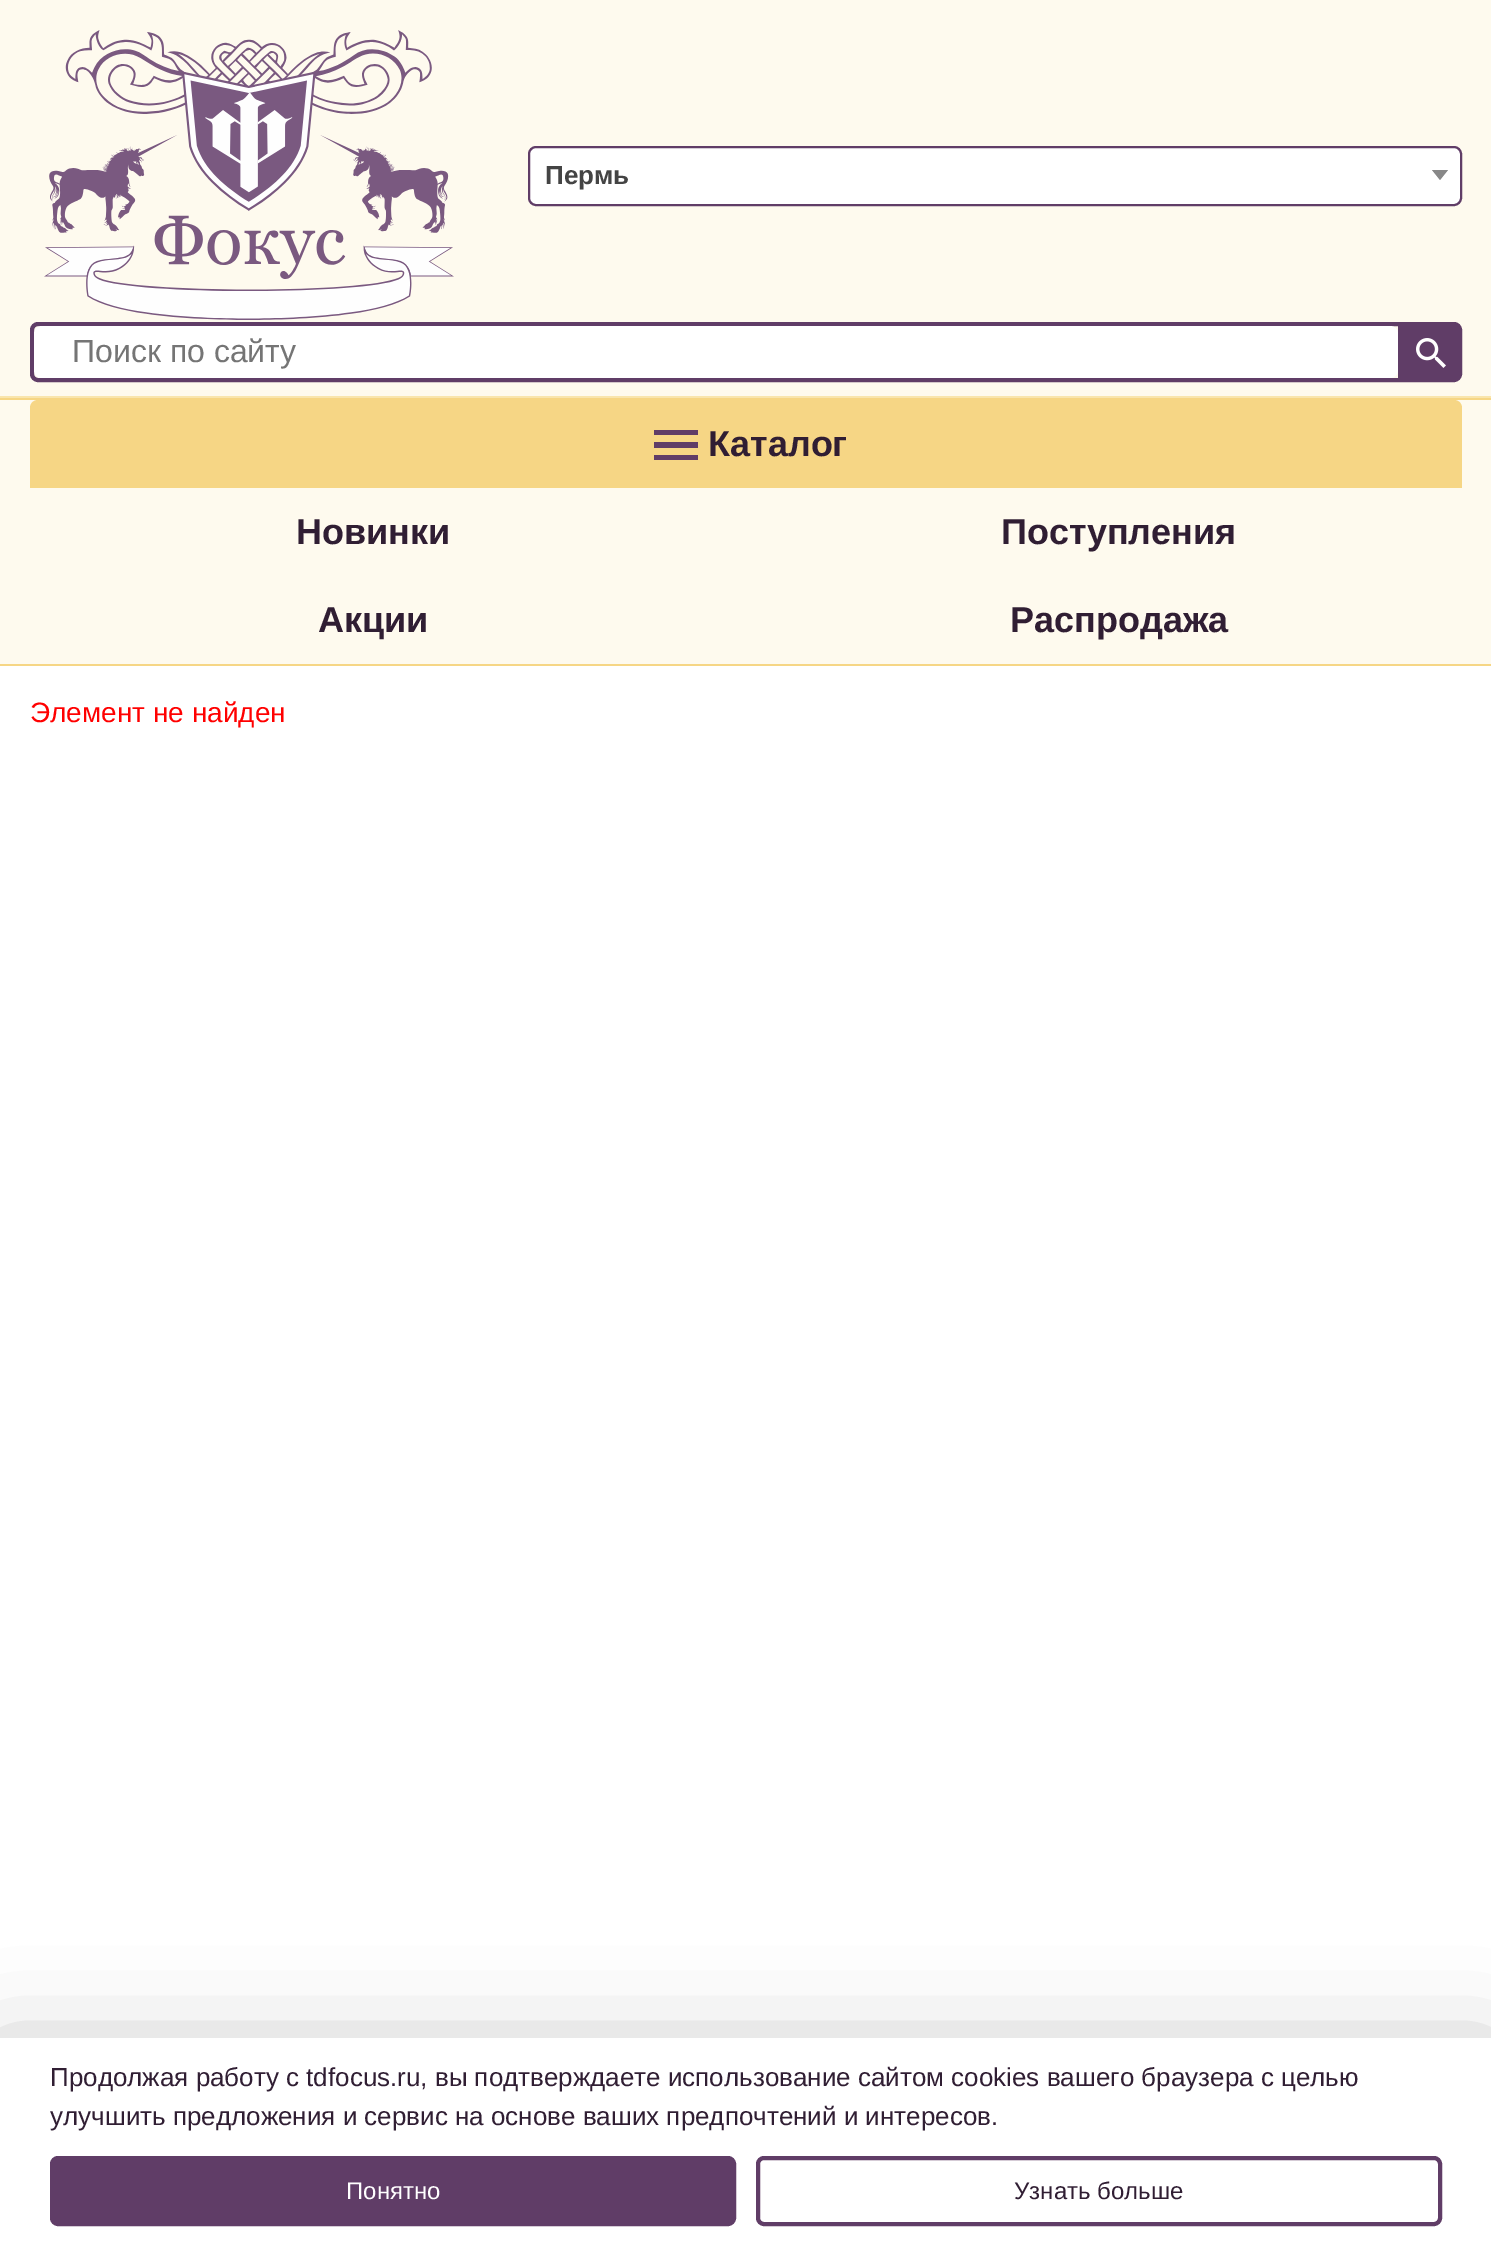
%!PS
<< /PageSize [1491 2246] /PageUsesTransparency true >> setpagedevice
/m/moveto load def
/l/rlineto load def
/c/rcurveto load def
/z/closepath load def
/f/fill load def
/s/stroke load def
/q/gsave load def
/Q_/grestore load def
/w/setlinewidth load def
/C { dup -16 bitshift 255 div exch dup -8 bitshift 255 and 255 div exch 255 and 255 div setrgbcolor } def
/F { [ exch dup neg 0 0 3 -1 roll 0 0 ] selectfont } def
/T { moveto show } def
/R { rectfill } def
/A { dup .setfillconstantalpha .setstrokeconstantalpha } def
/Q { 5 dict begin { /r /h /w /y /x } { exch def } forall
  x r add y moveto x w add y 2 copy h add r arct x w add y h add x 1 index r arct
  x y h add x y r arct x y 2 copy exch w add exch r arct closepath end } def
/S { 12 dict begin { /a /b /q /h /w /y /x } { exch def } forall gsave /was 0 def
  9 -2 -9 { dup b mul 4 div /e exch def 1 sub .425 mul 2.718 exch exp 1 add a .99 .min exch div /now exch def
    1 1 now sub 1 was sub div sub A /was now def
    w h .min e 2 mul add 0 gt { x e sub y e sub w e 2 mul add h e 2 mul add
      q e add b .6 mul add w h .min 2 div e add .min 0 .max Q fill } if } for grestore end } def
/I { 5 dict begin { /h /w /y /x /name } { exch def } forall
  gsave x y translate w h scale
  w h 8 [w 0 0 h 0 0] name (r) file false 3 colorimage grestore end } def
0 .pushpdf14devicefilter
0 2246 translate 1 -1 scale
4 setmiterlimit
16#FFFFFF C
0 0 1491 2246 R
16#FEFAEE C
0 0 1491 396 R
16#F9E5AD C
0 396 1491 2 R
(1.rgb) 44 30 410 290 I
16#FFFFFF C
529 147 932 58 7 Q q f Q_
16#603D67 C
2 w
s
/Arimo-Bold 26 F
16#444444 C
(Пермь) 545 184 T
16#888888 C
1432 170 m 16 0 l -8 10 l z f
16#603D67 C
4 w
32 324 1428 56 6 Q s
16#FFFFFF C
34 326 1364 52 8 Q f
/Arimo-Regular 32 F
16#757575 C
(Поиск по сайту) 72 362 T
16#603D67 C
1398 326 60 52 R
(2.rgb) 1416 338 30 30 I
16#FEFAEE C
0 400 1491 264 R
16#F6D685 C
0 398 1491 2 R
0 664 1491 2 R
38 400 m 1416 0 l 4.5 0 8 3.5 8 8 c 0 80 l -1432 0 l 0 -80 l 0 -4.5 3.5 -8 8 -8 c z f
16#603D67 C
654 430 m 44 0 l 0 5 l -44 0 l 0 -5 l 654 442 m 44 0 l 0 6 l -44 0 l 0 -6 l 654 455 m 44 0 l 0 5 l -44 0 l z eofill
/Arimo-Bold 36 F
16#301E33 C
(Каталог) 708 456 T
(Новинки) 296 544 T
(Поступления) 1001 544 T
(Акции) 318 632 T
(Распродажа) 1010 632 T
/Arimo-Regular 28 F
16#FF0000 C
(Элемент не найден) 30 722 T
16#000000 C
0 2058 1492 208 0 50 .3 S
16#FFFFFF C
0 2038 1491 208 R
/Arimo-Regular 26 F
16#301E33 C
(Продолжая работу с tdfocus.ru, вы подтверждаете использование сайтом cookies вашего браузера с целью) 50 2086 T
(улучшить предложения и сервис на основе ваших предпочтений и интересов.) 50 2125 T
16#603D67 C
52 2158 682 66 6 Q q f Q_
s
/Arimo-Regular 24 F
16#FFFFFF C
(Понятно) 346 2199 T
16#603D67 C
758 2158 682 66 6 Q s
16#301E33 C
(Узнать больше) 1014 2199 T
.poppdf14devicefilter showpage
